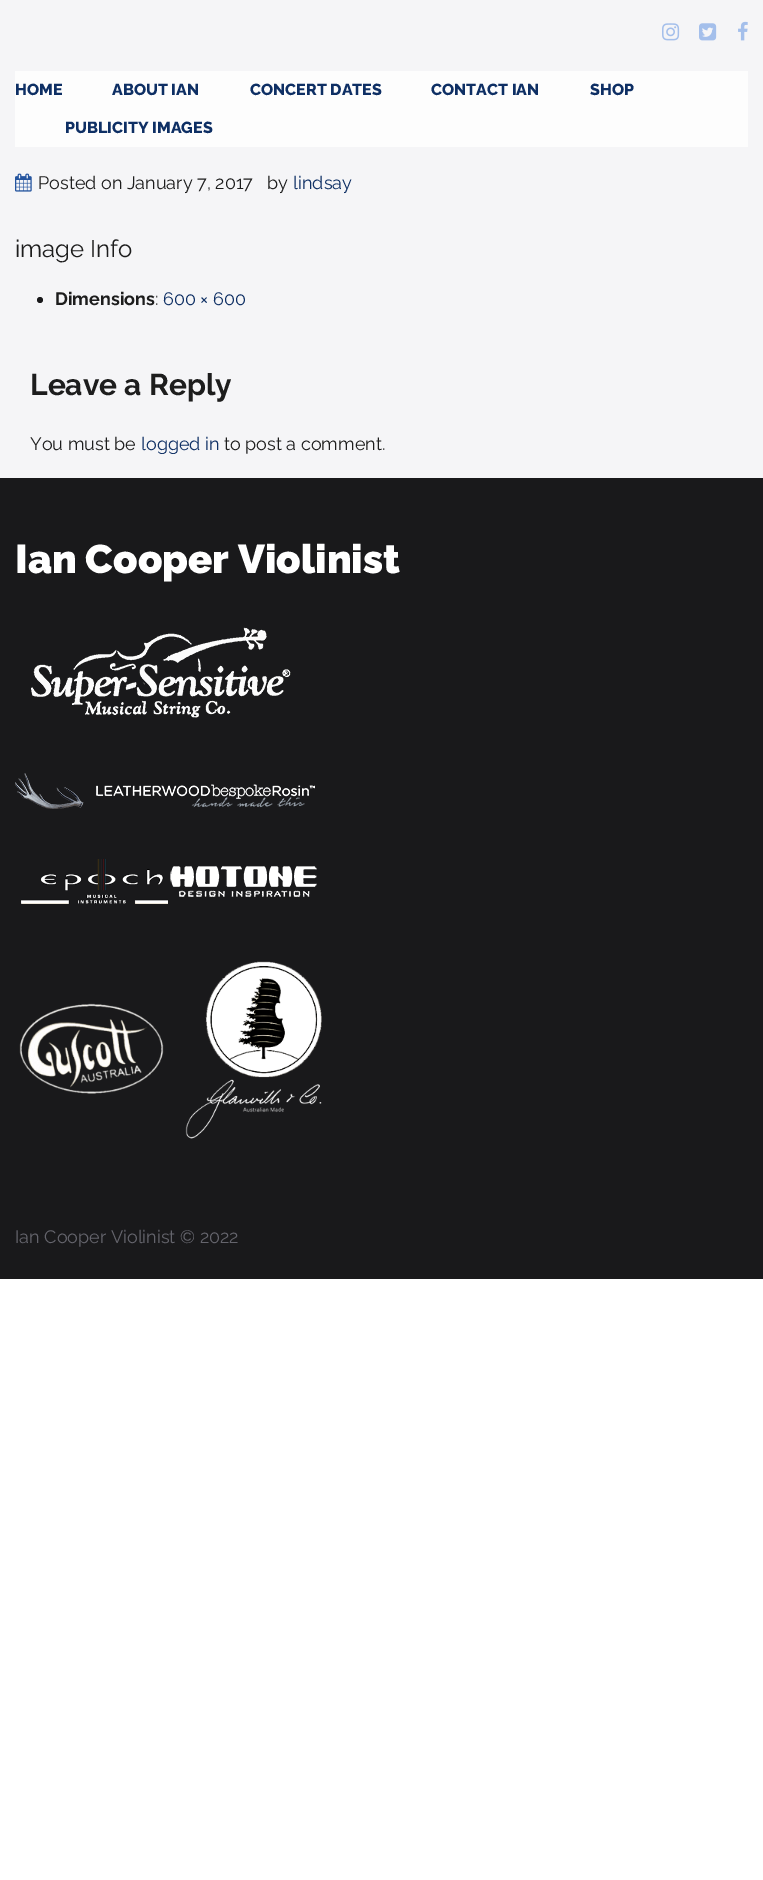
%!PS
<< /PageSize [763 1880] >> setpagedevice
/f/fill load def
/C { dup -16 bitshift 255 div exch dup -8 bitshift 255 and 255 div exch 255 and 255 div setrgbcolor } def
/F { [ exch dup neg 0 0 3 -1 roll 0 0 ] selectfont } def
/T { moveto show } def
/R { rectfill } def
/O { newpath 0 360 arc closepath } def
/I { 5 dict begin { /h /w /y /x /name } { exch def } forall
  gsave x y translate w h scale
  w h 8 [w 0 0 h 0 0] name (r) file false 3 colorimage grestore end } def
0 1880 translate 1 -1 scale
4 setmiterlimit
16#FFFFFF C
0 0 763 1880 R
16#F5F5F7 C
0 0 763 478 R
(1.rgb) 662 23 18 18 I
(2.rgb) 699 23 18 18 I
(3.rgb) 738 21 10 20 I
16#FDFDFD C
15 71 733 76 R
/Raleway-ExtraBold 16 F
16#0E2F64 C
(HOME) 15 95 T
(ABOUT IAN) 112 95 T
(CONCERT DATES) 250 95 T
(CONTACT IAN) 431 95 T
(SHOP) 590 95 T
(PUBLICITY IMAGES) 65 133 T
(4.rgb) 15 173 17 19 I
/Raleway-Regular 18 F
16#1D1D1D C
(Posted on January 7, 2017) 38 189 T
(by) 267 189 T
16#0E2F64 C
(lindsay) 293 189 T
/Raleway-Regular 24 F
16#1D1D1D C
(image Info) 15 257 T
16#19191B C
40 300 3 O f
/Raleway-Bold 18 F
16#1D1D1D C
(Dimensions) 55 305 T
/Raleway-Regular 18 F
(:) 155 305 T
16#0E2F64 C
(600 × 600) 163 305 T
/Raleway-Bold 30 F
16#1D1D1D C
(Leave a Reply) 30 395 T
/Raleway-Regular 18 F
(You must be) 30 450 T
16#0E2F64 C
(logged in) 141 450 T
16#1D1D1D C
(to post a comment.) 224 450 T
16#19191B C
0 478 763 801 R
/Raleway-Black 40 F
16#FFFFFF C
(Ian Cooper Violinist) 15 573 T
(5.rgb) 31 627 260 91 I
(6.rgb) 15 773 300 36 I
(7.rgb) 21 859 147 45 I
(8.rgb) 170 866 147 31 I
(9.rgb) 19 1003 145 91 I
(10.rgb) 185 961 137 178 I
/Raleway-Regular 18 F
16#64646C C
(Ian Cooper Violinist © 2022) 15 1243 T
showpage
